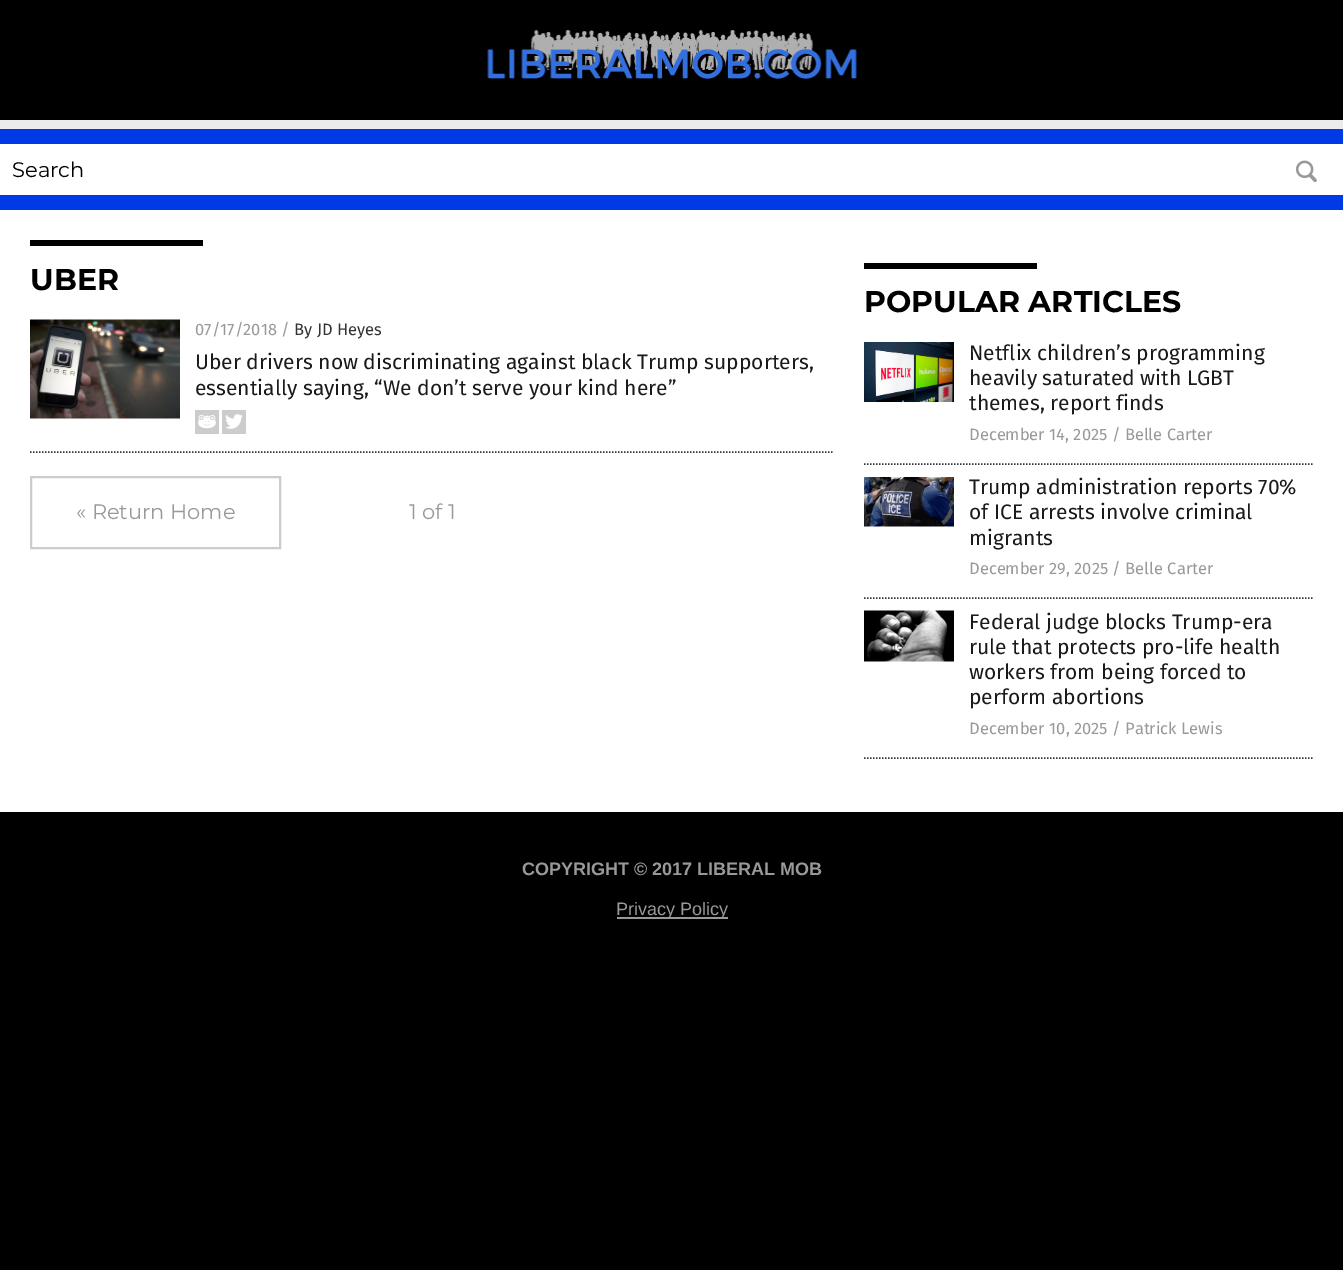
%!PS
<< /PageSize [1343 1270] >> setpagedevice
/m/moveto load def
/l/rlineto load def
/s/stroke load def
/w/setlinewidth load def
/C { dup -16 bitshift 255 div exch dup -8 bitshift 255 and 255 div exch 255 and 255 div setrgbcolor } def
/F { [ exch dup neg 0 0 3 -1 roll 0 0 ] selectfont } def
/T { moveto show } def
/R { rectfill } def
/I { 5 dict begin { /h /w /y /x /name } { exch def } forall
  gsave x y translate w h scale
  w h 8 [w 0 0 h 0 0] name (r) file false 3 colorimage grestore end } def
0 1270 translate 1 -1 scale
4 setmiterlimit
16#000000 C
0 0 1343 1270 R
16#0039E6 C
0 129 1343 81 R
(1.rgb) 487 30 370 49 I
16#ECECEC C
0 120 1343 9 R
16#FFFFFF C
0 144 1343 51 R
/Montserrat-Regular 21 F
16#000000 C
(Search) 12 177 T
(2.rgb) 1295 160 22 23 I
16#FFFFFF C
0 210 1343 602 R
16#000000 C
30 240 173 6 R
/Montserrat-Bold 30 F
(UBER) 30 290 T
16#343434 C
1.5 w
[1.5 1.5] 0 setdash
30 452 m 804 0 l s
(3.rgb) 30 319 150 100 I
/FiraSans-Regular 16.5 F
16#999999 C
(07/17/2018 /) 195 335 T
16#333333 C
(By JD Heyes) 294 335 T
/FiraSans-Regular 21 F
16#1A1A1A C
(Uber drivers now discriminating against black Trump supporters,) 195 369 T
(essentially saying, “We don’t serve your kind here”) 195 395 T
(4.rgb) 195 410 24 24 I
(5.rgb) 222 410 24 24 I
16#CCCCCC C
2 w
[] 0 setdash
31 477 249 71 rectstroke
/Montserrat-Regular 21 F
16#999999 C
(« Return Home) 76 519 T
(1 of 1) 409 519 T
16#000000 C
864 263 173 6 R
/Montserrat-Bold 30 F
(POPULAR ARTICLES) 864 312 T
16#343434 C
1.5 w
[1.5 1.5] 0 setdash
864 464 m 450 0 l s
(6.rgb) 864 342 90 60 I
/FiraSans-Regular 21 F
16#1A1A1A C
(Netflix children’s programming) 969 360 T
(heavily saturated with LGBT) 969 385 T
(themes, report finds) 969 410 T
/FiraSans-Regular 16.5 F
16#999999 C
(December 14, 2025 / Belle Carter) 969 440 T
16#343434 C
864 598 m 450 0 l s
(7.rgb) 864 477 90 50 I
/FiraSans-Regular 21 F
16#1A1A1A C
(Trump administration reports 70%) 969 494 T
(of ICE arrests involve criminal) 969 519 T
(migrants) 969 545 T
/FiraSans-Regular 16.5 F
16#999999 C
(December 29, 2025 / Belle Carter) 969 574 T
16#343434 C
864 758 m 450 0 l s
(8.rgb) 864 610 90 52 I
/FiraSans-Regular 21 F
16#1A1A1A C
(Federal judge blocks Trump-era) 969 629 T
(rule that protects pro-life health) 969 654 T
(workers from being forced to) 969 679 T
(perform abortions) 969 704 T
/FiraSans-Regular 16.5 F
16#999999 C
(December 10, 2025 / Patrick Lewis) 969 734 T
/LiberationSans-Bold 18 F
(COPYRIGHT © 2017 LIBERAL MOB) 522 875 T
617 917 111 2 R
/LiberationSans-Regular 18 F
(Privacy Policy) 616 915 T
showpage
